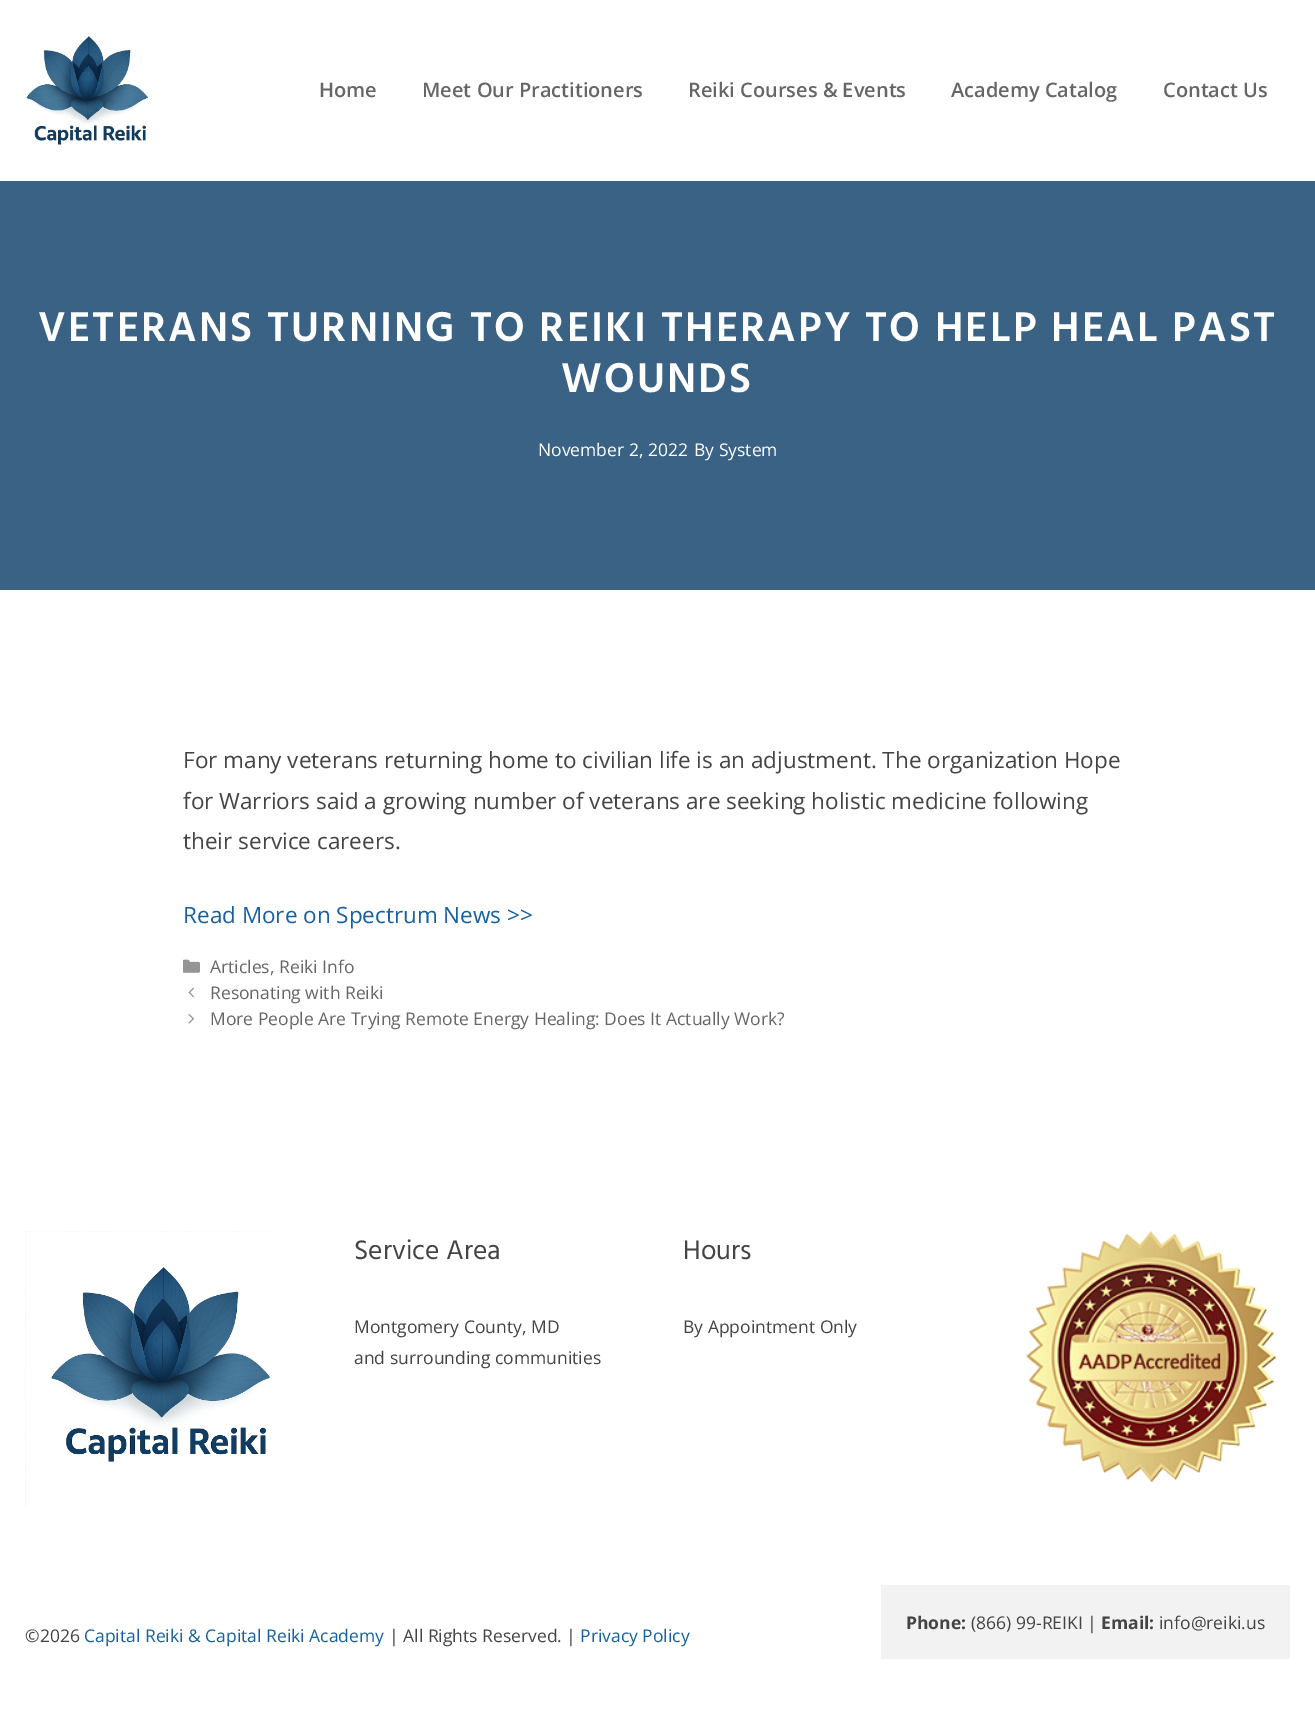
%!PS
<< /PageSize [1315 1735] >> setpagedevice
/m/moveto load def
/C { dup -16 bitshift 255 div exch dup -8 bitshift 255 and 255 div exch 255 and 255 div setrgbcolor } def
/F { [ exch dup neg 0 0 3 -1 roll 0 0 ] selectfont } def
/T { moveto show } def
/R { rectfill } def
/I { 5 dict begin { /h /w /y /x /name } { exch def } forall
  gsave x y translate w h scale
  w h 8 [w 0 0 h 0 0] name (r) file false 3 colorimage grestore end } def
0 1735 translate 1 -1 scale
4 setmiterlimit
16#FFFFFF C
0 0 1315 1735 R
(1.rgb) 26 36 122 109 I
/OpenSans-SemiBold 20 F
16#666666 C
(Home) 319 97 T
(Meet Our Practitioners) 422 97 T
(Reiki Courses & Events) 688 97 T
(Academy Catalog) 951 97 T
(Contact Us) 1163 97 T
16#3A6285 C
0 181 1315 409 R
/Hind-SemiBold 42.5 F
16#FFFFFF C
38 341 m 2.12 0 (VETERANS TURNING TO REIKI THERAPY TO HELP HEAL PAST) ashow
561 392 m 2.12 0 (WOUNDS) ashow
/OpenSans-Regular 17.5 F
(November 2, 2022) 538 456 T
(By System) 694 456 T
/OpenSans-Regular 22.5 F
16#444444 C
(For many veterans returning home to civilian life is an adjustment. The organization Hope) 183 768 T
(for Warriors said a growing number of veterans are seeking holistic medicine following) 183 809 T
(their service careers.) 183 849 T
16#1761A0 C
(Read More on Spectrum News >>) 183 923 T
(2.rgb) 183 959 17 14 I
/OpenSans-Regular 17.5 F
16#666666 C
(Articles, Reiki Info) 210 973 T
(3.rgb) 188 987 6 11 I
(Resonating with Reiki) 210 999 T
(4.rgb) 188 1014 6 10 I
(More People Are Trying Remote Energy Healing: Does It Actually Work?) 210 1025 T
(5.rgb) 25 1231 245 278 I
/Hind-Regular 27.5 F
16#444444 C
(Service Area) 354 1259 T
/OpenSans-Regular 17.5 F
(Montgomery County, MD) 354 1333 T
(and surrounding communities) 354 1364 T
/Hind-Regular 27.5 F
(Hours) 683 1259 T
/OpenSans-Regular 17.5 F
(By Appointment Only) 683 1333 T
(6.rgb) 1026 1231 251 252 I
16#F2F2F2 C
881 1585 409 74 R
/OpenSans-Bold 17.5 F
16#444444 C
(Phone:) 906 1629 T
/OpenSans-Regular 17.5 F
(\(866\) 99-REIKI |) 971 1629 T
/OpenSans-Bold 17.5 F
(Email:) 1101 1629 T
/OpenSans-Regular 17.5 F
(info@reiki.us) 1159 1629 T
(©2026) 25 1642 T
16#1761A0 C
(Capital Reiki & Capital Reiki Academy) 84 1642 T
16#444444 C
(| All Rights Reserved. |) 389 1642 T
16#1761A0 C
(Privacy Policy) 580 1642 T
showpage
